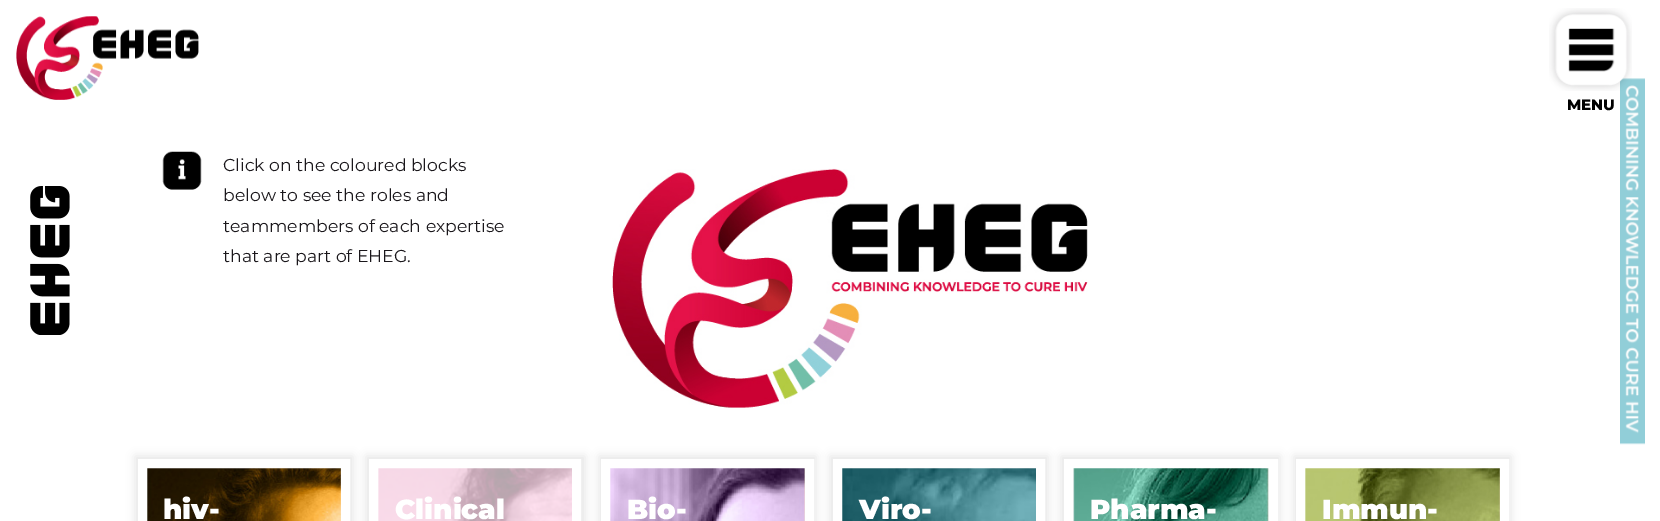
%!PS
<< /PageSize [1660 521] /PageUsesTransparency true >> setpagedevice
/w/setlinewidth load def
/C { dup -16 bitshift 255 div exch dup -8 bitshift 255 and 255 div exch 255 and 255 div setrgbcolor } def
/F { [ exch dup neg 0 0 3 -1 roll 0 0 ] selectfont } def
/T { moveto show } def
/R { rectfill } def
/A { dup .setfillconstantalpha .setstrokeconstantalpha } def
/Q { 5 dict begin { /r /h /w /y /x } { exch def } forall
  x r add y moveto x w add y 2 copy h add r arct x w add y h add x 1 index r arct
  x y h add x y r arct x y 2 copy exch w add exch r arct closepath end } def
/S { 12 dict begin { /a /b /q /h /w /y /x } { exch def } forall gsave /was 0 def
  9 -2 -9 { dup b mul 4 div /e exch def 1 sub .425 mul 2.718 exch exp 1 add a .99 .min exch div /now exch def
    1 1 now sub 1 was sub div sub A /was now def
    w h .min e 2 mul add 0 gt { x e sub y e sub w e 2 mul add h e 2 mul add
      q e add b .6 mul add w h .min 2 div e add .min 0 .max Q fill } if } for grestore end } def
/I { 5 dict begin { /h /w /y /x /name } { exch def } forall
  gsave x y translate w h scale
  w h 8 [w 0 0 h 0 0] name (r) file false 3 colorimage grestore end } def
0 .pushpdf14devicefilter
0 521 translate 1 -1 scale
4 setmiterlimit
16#FFFFFF C
0 0 1660 521 R
(1.rgb) 16 16 183 84 I
(3.rgb) 1620 78 25 367 I
(2.rgb) 1549 8 83 83 I
/Montserrat-ExtraBold 15 F
16#000000 C
(MENU) 1567 110 T
(4.rgb) 30 186 40 149 I
(5.rgb) 162 151 40 39 I
/Montserrat-Regular 17.25 F
16#1A171B C
(Click on the coloured blocks) 223 171 T
(below to see the roles and) 223 201 T
(teammembers of each expertise) 223 232 T
(that are part of EHEG.) 223 262 T
(6.rgb) 612 168 476 240 I
16#000000 C
135 456 218 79 0 4.5 .1 S
(7.rgb) 147 468 194 53 I
16#FFFFFF C
9 w
142.5 463.5 203 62 rectstroke
/Montserrat-Black 27.5 F
(hiv-) 163 519 T
16#000000 C
366 456 219 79 0 4.5 .1 S
(8.rgb) 378 468 194 53 I
16#FFFFFF C
373.5 463.5 203 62 rectstroke
(Clinical) 395 519 T
0.65 A
378 468 194 53 R
1 A
16#000000 C
599 456 217 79 0 4.5 .1 S
(9.rgb) 610 468 195 53 I
16#FFFFFF C
605.5 463.5 204 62 rectstroke
(Bio-) 627 519 T
16#000000 C
830 456 218 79 0 4.5 .1 S
(10.rgb) 842 468 194 53 I
16#FFFFFF C
837.5 463.5 203 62 rectstroke
(Viro-) 859 519 T
16#000000 C
1061 456 219 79 0 4.5 .1 S
16#FFFFFF C
1073 468 196 53 R
(11.rgb) 1073 468 196 53 I
1068.5 463.5 205 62 rectstroke
(Pharma-) 1090 519 T
16#000000 C
1294 456 217 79 0 4.5 .1 S
(12.rgb) 1305 468 195 53 I
16#FFFFFF C
1300.5 463.5 204 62 rectstroke
(Immun-) 1322 519 T
.poppdf14devicefilter showpage
